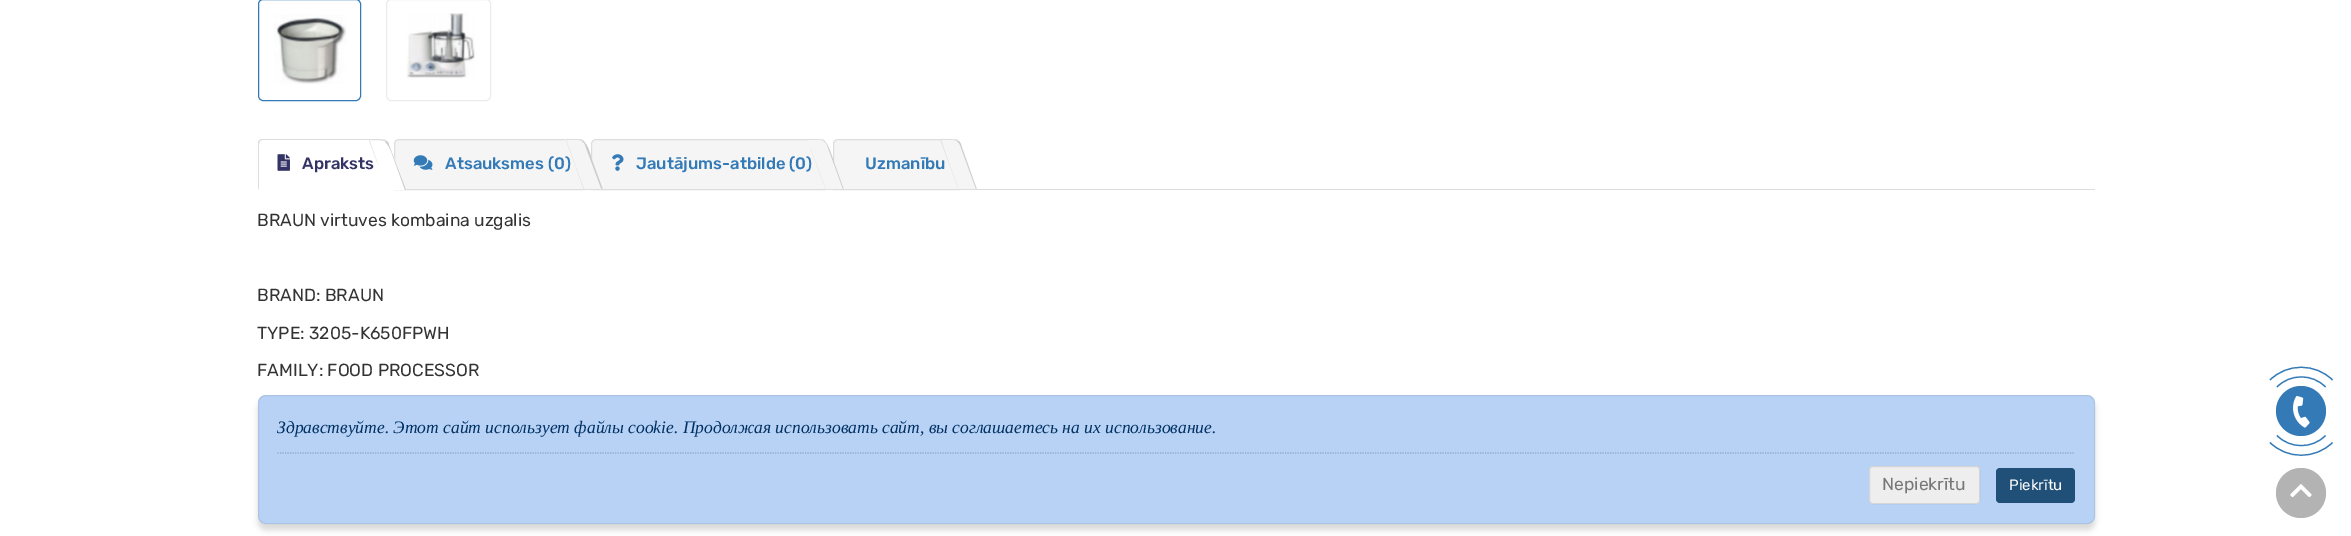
%!PS
<< /PageSize [2351 536] /PageUsesTransparency true >> setpagedevice
/m/moveto load def
/l/rlineto load def
/c/rcurveto load def
/z/closepath load def
/f/fill load def
/s/stroke load def
/q/gsave load def
/Q_/grestore load def
/w/setlinewidth load def
/C { dup -16 bitshift 255 div exch dup -8 bitshift 255 and 255 div exch 255 and 255 div setrgbcolor } def
/F { [ exch dup neg 0 0 3 -1 roll 0 0 ] selectfont } def
/T { moveto show } def
/R { rectfill } def
/A { dup .setfillconstantalpha .setstrokeconstantalpha } def
/O { newpath 0 360 arc closepath } def
/Q { 5 dict begin { /r /h /w /y /x } { exch def } forall
  x r add y moveto x w add y 2 copy h add r arct x w add y h add x 1 index r arct
  x y h add x y r arct x y 2 copy exch w add exch r arct closepath end } def
/S { 12 dict begin { /a /b /q /h /w /y /x } { exch def } forall gsave /was 0 def
  9 -2 -9 { dup b mul 4 div /e exch def 1 sub .425 mul 2.718 exch exp 1 add a .99 .min exch div /now exch def
    1 1 now sub 1 was sub div sub A /was now def
    w h .min e 2 mul add 0 gt { x e sub y e sub w e 2 mul add h e 2 mul add
      q e add b .6 mul add w h .min 2 div e add .min 0 .max Q fill } if } for grestore end } def
/I { 5 dict begin { /h /w /y /x /name } { exch def } forall
  gsave x y translate w h scale
  w h 8 [w 0 0 h 0 0] name (r) file false 3 colorimage grestore end } def
0 .pushpdf14devicefilter
0 536 translate 1 -1 scale
4 setmiterlimit
16#FFFFFF C
0 0 2351 536 R
(1.rgb) 274 14 73 70 I
16#337AB7 C
258.5 -.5 102 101 4.5 Q s
(2.rgb) 406 13 69 65 I
16#EBEBEB C
386.5 -.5 104 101 4.5 Q s
16#DDDDDD C
976 189 1119 1 R
262 139 m -1 0 -2 1 -3 1 c 1 1 l 2 -1 l 120 0 l 1 0 2 0 3 1 c 1 -1 l -4 -1 l z f
386 140 m 2 2 l 0 48 l -2 -2 l 0 -44 l 0 -1 0 -2 -1 -3 c z f
259 140 m -1 1 -1 3 -1 4 c 0 46 l 1 -2 l 0 -44 l 1 -3 l z f
(3.rgb) 277 154 13 17 I
/Rubik-Medium 16.6 F
16#333366 C
(Apraksts) 302 169 T
16#F5F5F5 C
399 139.5 m 181 0 l 2.5 0 4.5 2 4.5 4.5 c 0 45.5 l -190 0 l 0 -45.5 l 0 -2.5 2 -4.5 4.5 -4.5 c z q f Q_
16#DDDDDD C
s
16#FFFFFF C
369 139 m 21 0 18 -1 26 21 c 11 30 l -19 0 l z f
16#DDDDDD C
378 164.5 m -9 -24.5 l .5 0 l z 369 139 m 9.5 0 14 0 17 1.5 c -.5 1 l -3 -1.5 -7 -1.5 -16 -1.5 c z eofill
16#CCCCCC C
386 141 m 2 1 3 2 3 4 c 17 45 l -1 0 l -9 -25 l -2 -5 -6 -20 -11 -23 c z f
(4.rgb) 413 155 20 15 I
16#337AB7 C
(Atsauksmes \(0\)) 445 169 T
16#F5F5F5 C
596 139.5 m 225 0 l 2.5 0 4.5 2 4.5 4.5 c 0 45.5 l -234 0 l 0 -45.5 l 0 -2.5 2 -4.5 4.5 -4.5 c z q f Q_
16#DDDDDD C
s
16#F5F5F5 C
565 139 m 22 0 19 -1 27 21 c 11 30 l -19 0 l z f
16#DDDDDD C
566 140 m 12 0 l 1.5 0 3 .5 4.5 1.5 c .5 -1 l -3 -1.5 -7.5 -1.5 -17.5 -1.5 c 9.5 25.5 l z f
16#CCCCCC C
583 141 m 5 3 8 15 9 19 c 11 30 l -2 -2 l -16 -43 l 0 -1 -1 -3 -3 -3 c z f
16#DDDDDD C
603 190 m -2 -1.5 l 0 .5 l -17 0 l -9 -24.5 l 9 25.5 l z f
(5.rgb) 612 154 12 17 I
16#337AB7 C
(Jautājums-atbilde \(0\)) 636 169 T
16#F5F5F5 C
838 139.5 m 117 0 l 2.5 0 4.5 2 4.5 4.5 c 0 45.5 l -126 0 l 0 -45.5 l 0 -2.5 2 -4.5 4.5 -4.5 c z q f Q_
16#DDDDDD C
s
16#F5F5F5 C
807 139 m 21 0 18 -1 26 21 c 11 30 l -18 0 l z f
16#DDDDDD C
824.5 141 m -3 -2 -7.5 -2 -17.5 -2 c .5 1 l 12.5 0 l 1.5 0 3 .5 4 1.5 c z 816.5 164.5 m -6 -16 l z eofill
16#CCCCCC C
844 190 m -9 -25 l -2 -5 -6 -21 -11 -24 c 1 1 2 2 3 4 c 16 44 l z f
16#DDDDDD C
844 190 m -18 0 l -.5 -1 l 17.5 0 l z 816.5 164.5 m 9 24.5 l z eofill
16#337AB7 C
(Uzmanību) 865 169 T
16#F5F5F5 C
940 139 m 22 0 19 -1 27 21 c 10 30 l -18 0 l z f
16#DDDDDD C
941 140 m 8.5 24.5 l -9.5 -25.5 l 10 0 14.5 0 17.5 1.5 c -.5 1 l -1 -1 -2.5 -1.5 -4 -1.5 c z f
16#CCCCCC C
958 141 m 3 1 3 4 4 7 c 15 42 l -1 -1 l -16 -44 l -1 -2 -2 -3 -3 -4 c z f
16#DDDDDD C
958.5 189 m -9 -24.5 l z 959 190 m -.5 -1 l 17.5 0 l 1 1 l z 949.5 164.5 m 0 0 l z eofill
/Rubik-Regular 17.5 F
16#333333 C
(BRAUN virtuves kombaina uzgalis) 257 226 T
(BRAND: BRAUN) 257 301 T
(TYPE: 3205-K650FPWH) 257 339 T
(FAMILY: FOOD PROCESSOR) 257 376 T
16#000000 C
258 401 1837 129 8 3 .15 S
16#B8D2F5 C
258 395 1837 129 8 Q f
0.07 A
16#000000 C
258.5 395.5 1836 128 7.5 Q s
/LiberationSerif-Italic 17.5 F
1 A
16#003163 C
(Здравствуйте. Этот сайт использует файлы cookie. Продолжая использовать сайт, вы соглашаетесь на их использование.) 277 433 T
16#93A8C4 C
1.2 w
[1.25 1.25] 0 setdash
277.5 453 m 1797.5 0 l s
16#EEEEEE C
1869 466 111 38 4 Q f
0.1 A
16#000000 C
1 w
[] 0 setdash
1869.5 466.5 110 37 3.5 Q s
/Rubik-Regular 17.5 F
1 A
16#777777 C
(Nepiekrītu) 1882 490 T
16#205077 C
1996 468 79 35 4 Q f
/Rubik-Regular 15 F
16#FFFFFF C
(Piekrītu) 2009 490 T
16#337AB7 C
2301 411 25 O f
1.2 w
2277 387 m 13 -13.5 35.5 -13.5 48.5 0 c s
2270 380 m 17 -17 45.5 -17 62.5 0 c s
2325.5 435.5 m -13 13.5 -35.5 13.5 -48.5 0 c s
2332.5 442.5 m -17 17 -45.5 17 -62.5 0 c s
(6.rgb) 2293 396 17 32 I
16#B3B3B3 C
2301 493 25 O f
(7.rgb) 2290 484 22 13 I
.poppdf14devicefilter showpage
